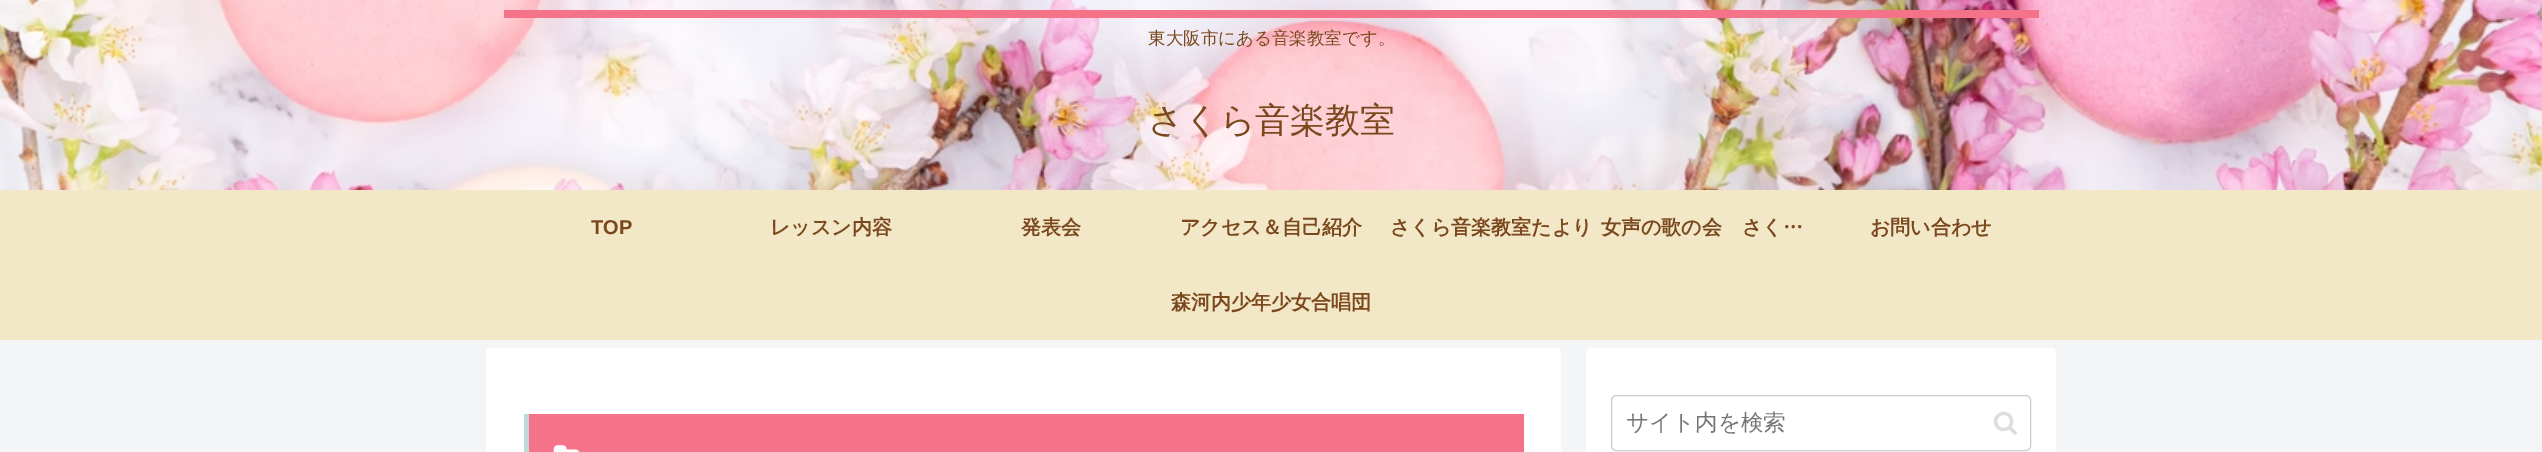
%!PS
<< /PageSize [2542 452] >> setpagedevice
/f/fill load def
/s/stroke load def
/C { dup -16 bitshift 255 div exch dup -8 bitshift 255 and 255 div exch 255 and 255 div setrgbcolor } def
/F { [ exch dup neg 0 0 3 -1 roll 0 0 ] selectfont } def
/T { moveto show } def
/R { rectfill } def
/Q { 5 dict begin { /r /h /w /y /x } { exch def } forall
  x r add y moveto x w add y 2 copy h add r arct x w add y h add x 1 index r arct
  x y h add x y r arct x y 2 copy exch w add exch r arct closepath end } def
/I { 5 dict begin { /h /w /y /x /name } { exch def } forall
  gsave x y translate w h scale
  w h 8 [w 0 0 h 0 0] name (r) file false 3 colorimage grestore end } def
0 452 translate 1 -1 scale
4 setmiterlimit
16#F4F5F7 C
0 0 2542 452 R
(1.rgb) 0 0 2542 190 I
16#F57388 C
504 10 1535 8 R
/WenQuanYiZenHei-Medium 17.5 F
16#7A481C C
(東大阪市にある音楽教室です。) 1148 44 T
/WenQuanYiZenHei-Medium 35 F
(さくら音楽教室) 1148 132 T
16#F2E7C7 C
0 190 2542 150 R
/LiberationSans-Bold 20 F
16#7A481C C
(TOP) 591 234 T
/WenQuanYiZenHei-Bold 20 F
(レッスン内容) 770 234 T
(発表会) 1021 234 T
(アクセス＆自己紹介) 1180 234 T
(さくら音楽教室たより) 1390 234 T
(女声の歌の会　さく…) 1601 234 T
(お問い合わせ) 1870 234 T
(森河内少年少女合唱団) 1171 309 T
16#FFFFFF C
486 348 1075 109 5 Q f
16#F57388 C
529 414 995 38 R
16#BBDAD9 C
524 414 5 38 R
(2.rgb) 553 445 27 7 I
16#FFFFFF C
1586 348 470 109 5 Q f
16#CCCCCC C
1611.5 395.5 419 55 4.5 Q s
/WenQuanYiZenHei-Medium 22.5 F
16#757575 C
(サイト内を検索) 1626 430 T
(3.rgb) 1993 411 24 24 I
showpage
